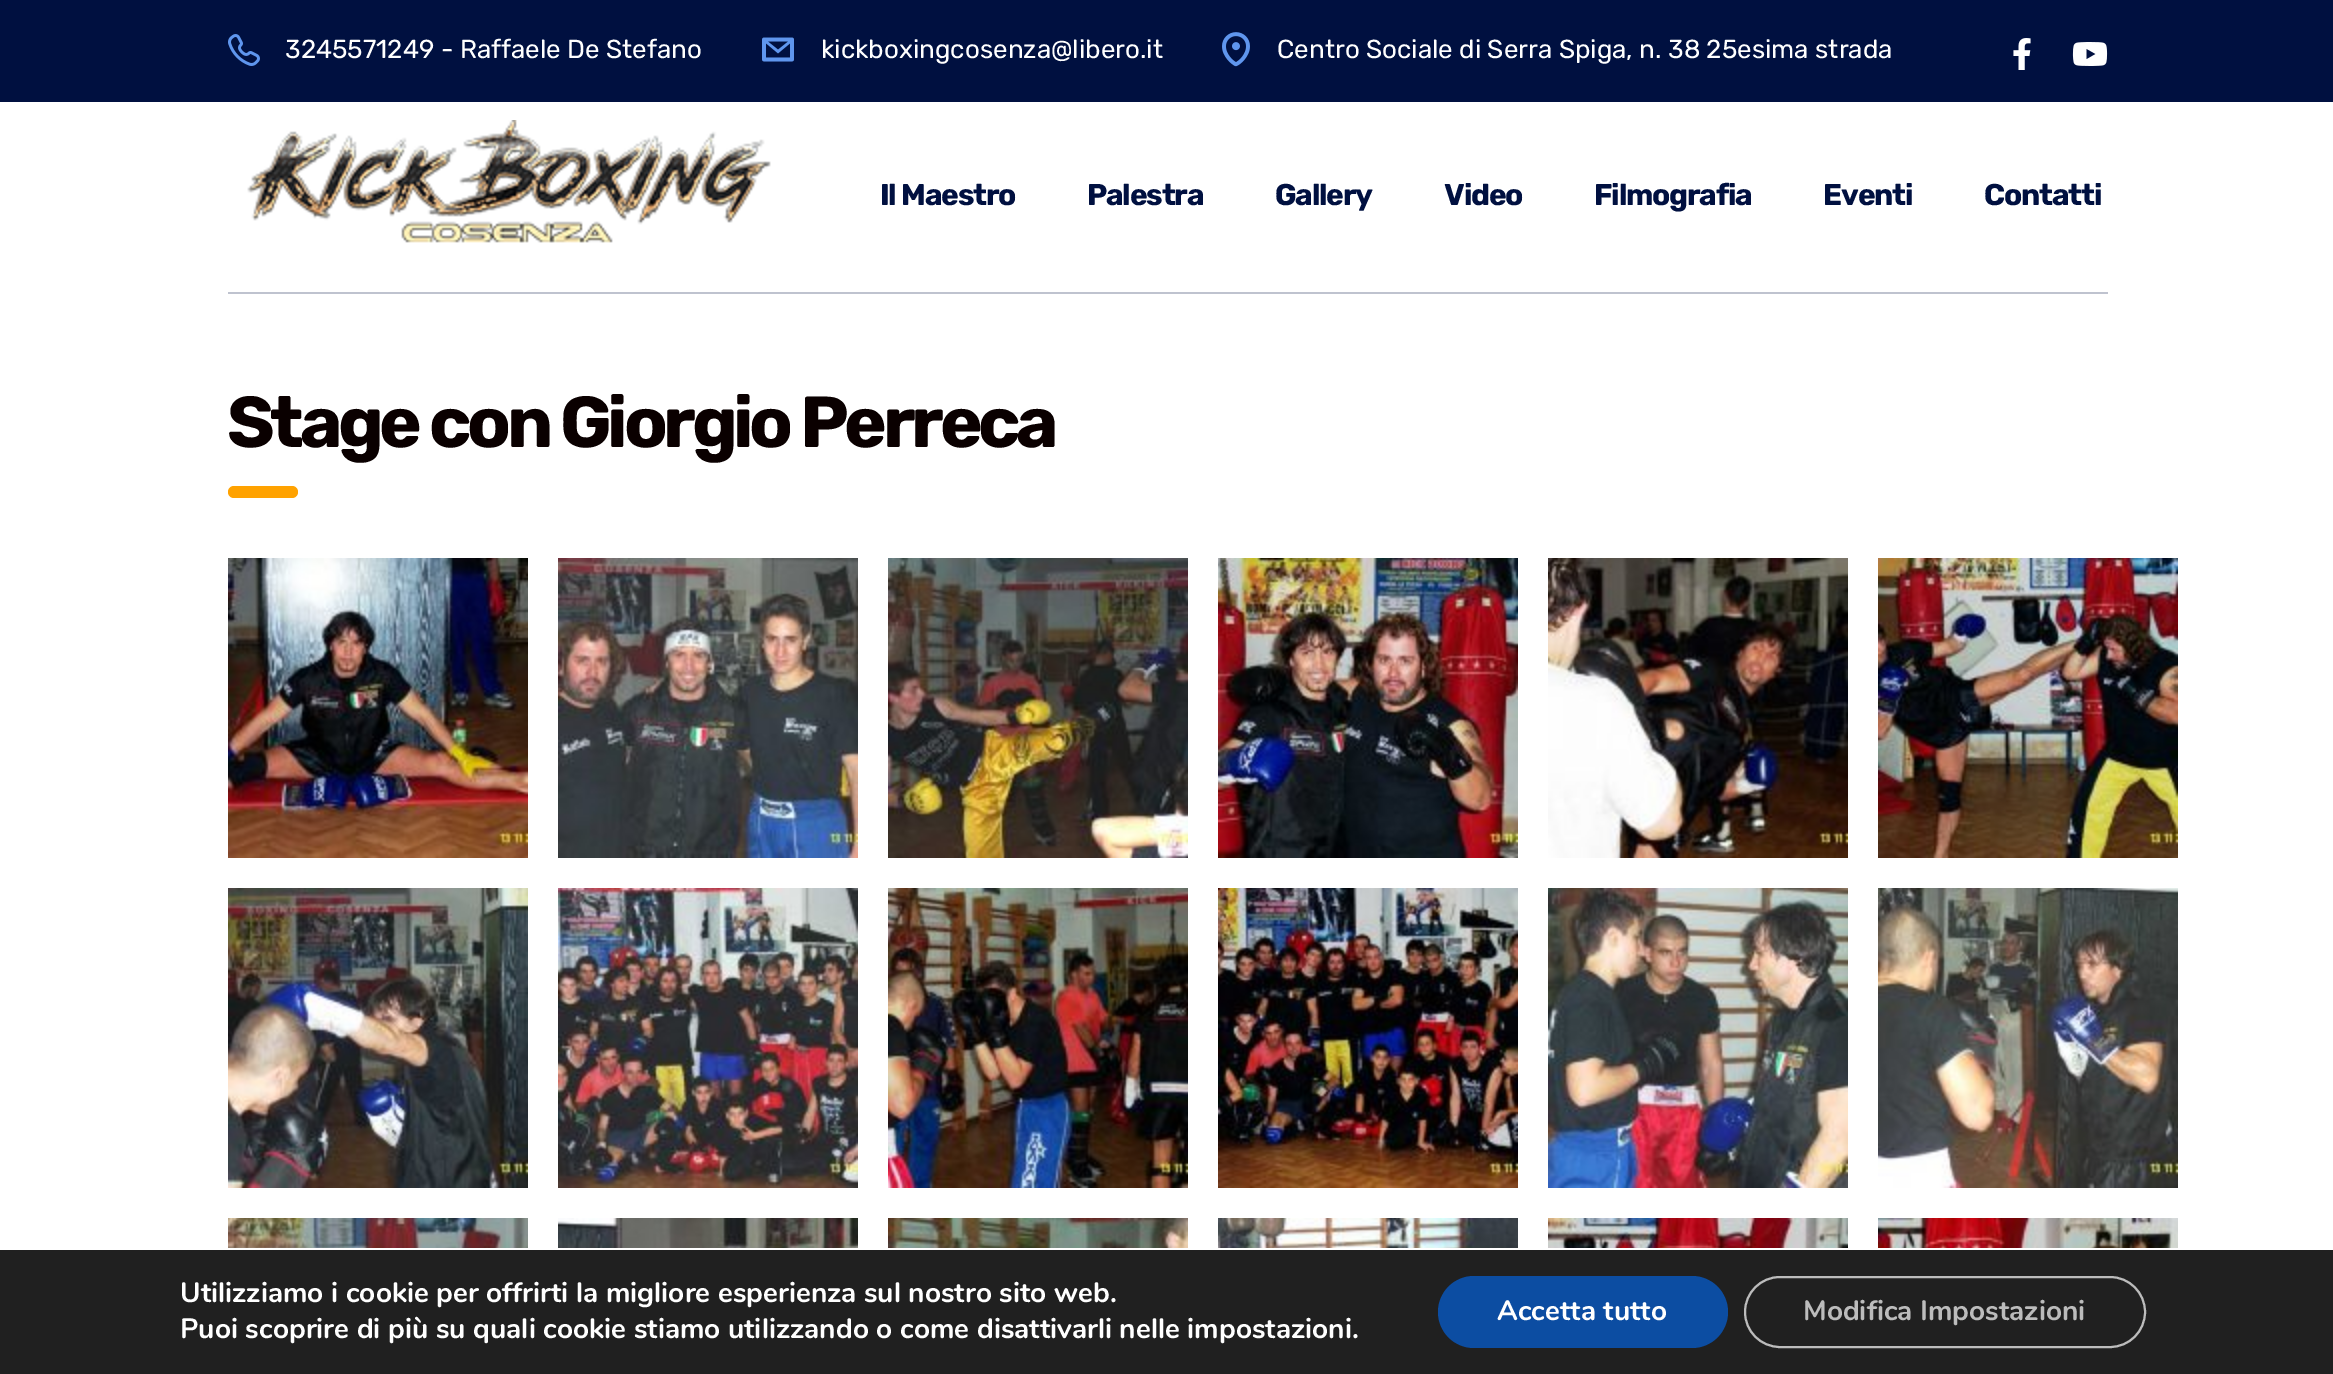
%!PS
<< /PageSize [2333 1374] >> setpagedevice
/m/moveto load def
/f/fill load def
/s/stroke load def
/w/setlinewidth load def
/C { dup -16 bitshift 255 div exch dup -8 bitshift 255 and 255 div exch 255 and 255 div setrgbcolor } def
/F { [ exch dup neg 0 0 3 -1 roll 0 0 ] selectfont } def
/T { moveto show } def
/R { rectfill } def
/Q { 5 dict begin { /r /h /w /y /x } { exch def } forall
  x r add y moveto x w add y 2 copy h add r arct x w add y h add x 1 index r arct
  x y h add x y r arct x y 2 copy exch w add exch r arct closepath end } def
/I { 5 dict begin { /h /w /y /x /name } { exch def } forall
  gsave x y translate w h scale
  w h 8 [w 0 0 h 0 0] name (r) file false 3 colorimage grestore end } def
0 1374 translate 1 -1 scale
4 setmiterlimit
16#FFFFFF C
0 0 2333 1374 R
16#001040 C
0 0 2333 102 R
(1.rgb) 228 34 32 32 I
/Rubik-Regular 26 F
16#FFFFFF C
(3245571249 - Raffaele De Stefano) 285 58 T
(2.rgb) 762 37 32 25 I
(kickboxingcosenza@libero.it) 821 58 T
(3.rgb) 1222 32 28 35 I
(Centro Sociale di Serra Spiga, n. 38 25esima strada) 1277 58 T
(4.rgb) 2013 38 18 32 I
(5.rgb) 2072 42 36 24 I
16#BFC3CF C
228 292 1880 2 R
(6.rgb) 247 120 524 123 I
/Rubik-Bold 30 F
16#001040 C
880 205 m -1.25 0 (Il Maestro) ashow
1087 205 m -1.25 0 (Palestra) ashow
1275 205 m -1.25 0 (Gallery) ashow
1444 205 m -1.25 0 (Video) ashow
1594 205 m -1.25 0 (Filmografia) ashow
1823 205 m -1.25 0 (Eventi) ashow
1984 205 m -1.25 0 (Contatti) ashow
/Rubik-Bold 72 F
16#0A0000 C
227 447 m -4.3 0 (Stage con Giorgio Perreca) ashow
16#FFA200 C
228 486 70 12 6 Q f
(7.rgb) 228 558 300 300 I
(8.rgb) 558 558 300 300 I
(9.rgb) 888 558 300 300 I
(10.rgb) 1218 558 300 300 I
(11.rgb) 1548 558 300 300 I
(12.rgb) 1878 558 300 300 I
(13.rgb) 228 888 300 300 I
(14.rgb) 558 888 300 300 I
(15.rgb) 888 888 300 300 I
(16.rgb) 1218 888 300 300 I
(17.rgb) 1548 888 300 300 I
(18.rgb) 1878 888 300 300 I
(19.rgb) 228 1218 300 30 I
(20.rgb) 558 1218 300 30 I
(21.rgb) 888 1218 300 30 I
(22.rgb) 1218 1218 300 30 I
(23.rgb) 1548 1218 300 30 I
(24.rgb) 1878 1218 300 30 I
16#202020 C
0 1250 2333 124 R
/Nunito-Bold 28 F
16#FFFFFF C
(Utilizziamo i cookie per offrirti la migliore esperienza sul nostro sito web.) 180 1302 T
(Puoi scoprire di più su quali cookie stiamo utilizzando o come disattivarli nelle impostazioni.) 180 1338 T
16#0C4DA2 C
1438 1276 290 72 36 Q f
16#FFFFFF C
(Accetta tutto) 1497 1320 T
16#BCBCBC C
2 w
1745 1277 400 70 35 Q s
(Modifica Impostazioni) 1803 1320 T
showpage
